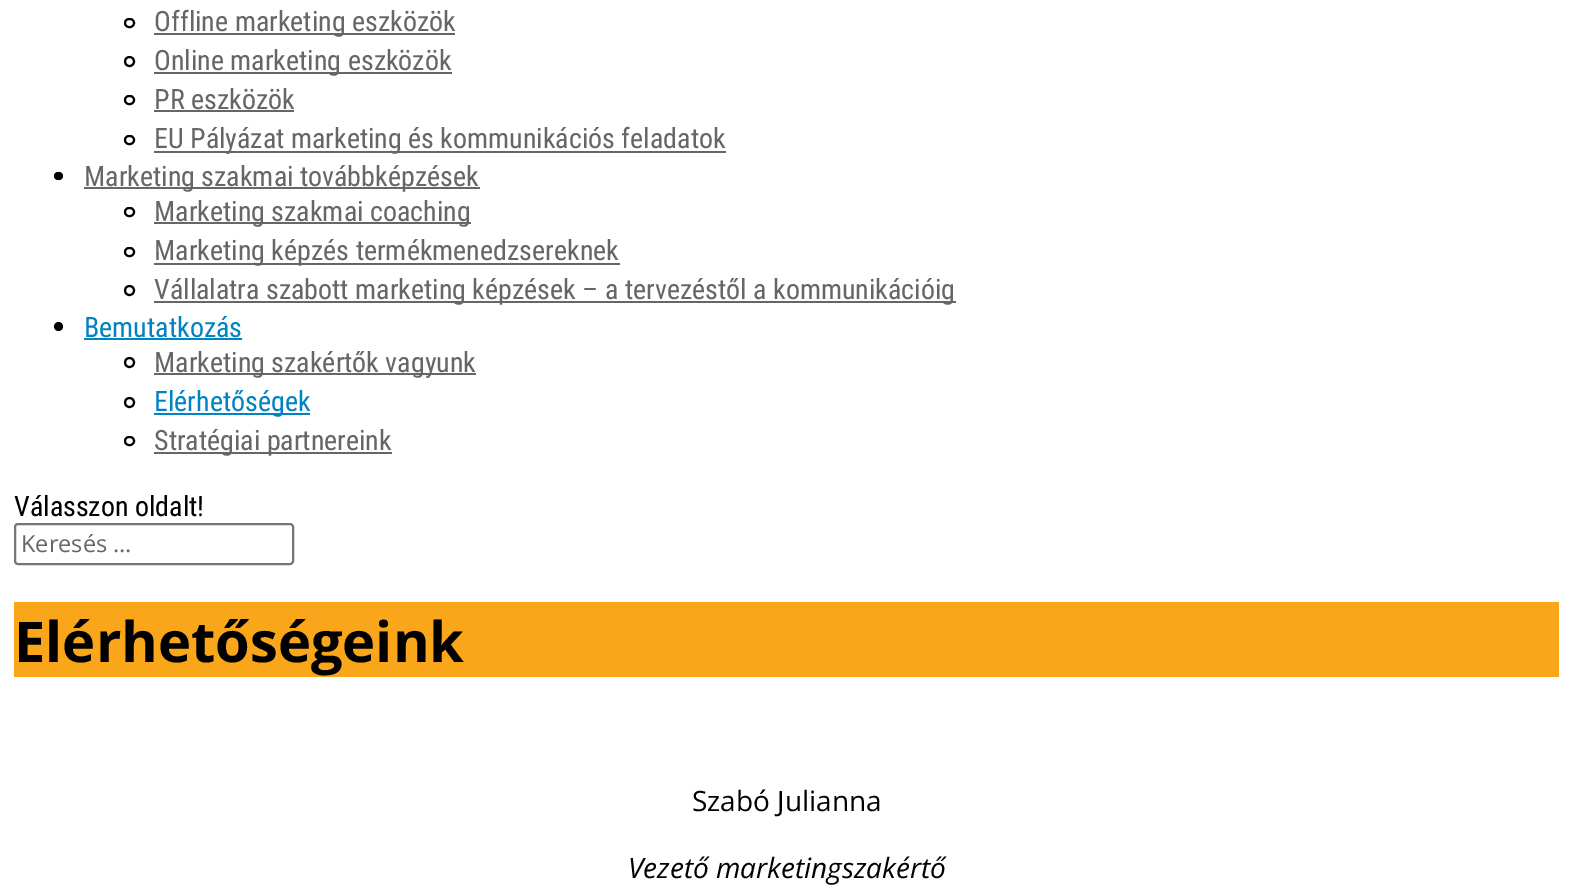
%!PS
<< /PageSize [1573 891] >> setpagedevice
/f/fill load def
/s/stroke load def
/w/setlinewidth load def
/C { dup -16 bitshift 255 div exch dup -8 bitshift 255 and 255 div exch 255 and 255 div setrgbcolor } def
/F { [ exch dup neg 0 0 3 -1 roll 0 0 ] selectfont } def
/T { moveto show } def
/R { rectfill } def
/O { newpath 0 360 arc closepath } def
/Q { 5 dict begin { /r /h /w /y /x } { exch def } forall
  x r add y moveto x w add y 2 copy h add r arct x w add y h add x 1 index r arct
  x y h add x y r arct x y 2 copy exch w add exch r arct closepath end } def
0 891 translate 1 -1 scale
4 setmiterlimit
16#FFFFFF C
0 0 1573 891 R
16#000000 C
2 w
125 19 9 8 4 Q s
16#666666 C
154 33 301 2 R
/RobotoCondensed-Regular 28 F
(Offline marketing eszközök) 154 31 T
16#000000 C
129.5 61.5 4.5 O s
16#666666 C
154 72 298 2 R
(Online marketing eszközök) 154 70 T
16#000000 C
125 96 9 8 4 Q s
16#666666 C
(PR eszközök) 154 109 T
154 110 140 2 R
16#000000 C
125 136 9 8 4 Q s
16#666666 C
154 151 572 2 R
(EU Pályázat marketing és kommunikációs feladatok) 154 148 T
16#000000 C
54 172 9 8 4 Q f
16#666666 C
84 187 396 2 R
(Marketing szakmai továbbképzések) 84 186 T
16#000000 C
125 208 9 8 4 Q s
16#666666 C
154 222 317 2 R
(Marketing szakmai coaching) 154 221 T
16#000000 C
125 248 9 8 4 Q s
16#666666 C
154 263 466 2 R
(Marketing képzés termékmenedzsereknek) 154 260 T
16#000000 C
129.5 290.5 4.5 O s
16#666666 C
154 301 802 2 R
(Vállalatra szabott marketing képzések – a tervezéstől a kommunikációig) 154 299 T
16#000000 C
58.5 326.5 4.5 O f
16#0083C2 C
(Bemutatkozás) 84 337 T
84 338 158 2 R
16#000000 C
129.5 362.5 4.5 O s
16#666666 C
154 373 322 2 R
(Marketing szakértők vagyunk) 154 372 T
16#000000 C
129.5 402.5 4.5 O s
16#0083C2 C
154 413 156 2 R
(Elérhetőségek) 154 411 T
16#000000 C
125 437 9 8 4 Q s
16#666666 C
154 452 238 2 R
(Stratégiai partnereink) 154 450 T
16#000000 C
(Válasszon oldalt!) 14 516 T
16#767676 C
15 524 278 40 3 Q s
/OpenSans-Regular 23.5 F
16#666666 C
(Keresés …) 21 552 T
16#FAA61A C
14 602 1545 75 R
/OpenSans-Bold 56 F
16#000000 C
(Elérhetőségeink) 14 662 T
/OpenSans-Regular 28 F
(Szabó Julianna) 692 811 T
/OpenSans-Italic 28 F
(Vezető marketingszakértő) 628 878 T
showpage
